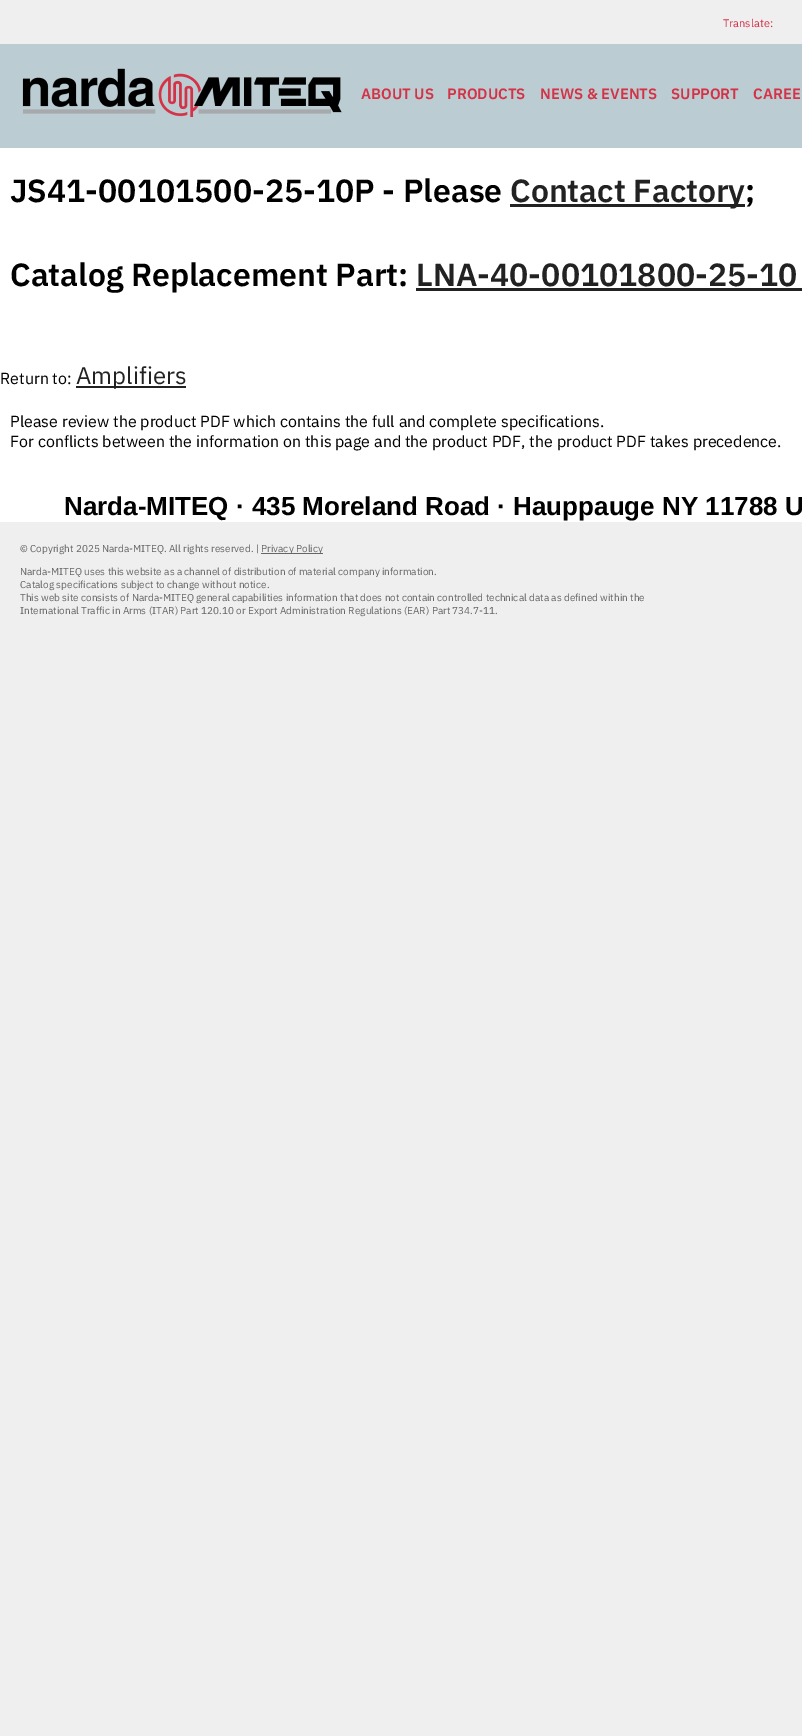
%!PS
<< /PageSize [802 1736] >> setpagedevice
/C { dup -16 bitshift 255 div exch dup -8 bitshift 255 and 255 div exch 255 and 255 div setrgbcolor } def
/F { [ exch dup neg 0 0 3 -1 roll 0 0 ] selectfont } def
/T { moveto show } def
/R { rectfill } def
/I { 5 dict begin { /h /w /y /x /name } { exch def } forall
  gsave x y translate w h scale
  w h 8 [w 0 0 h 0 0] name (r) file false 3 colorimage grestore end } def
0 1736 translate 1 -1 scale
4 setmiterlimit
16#EFEFEF C
0 0 802 1736 R
/IBMPlexSans-Regular 11 F
16#D43246 C
(Translate:) 723 27 T
16#BBCDD2 C
0 44 802 104 R
(1.rgb) 22 68 320 49 I
/IBMPlexSans-SemiBold 15 F
16#D43246 C
(ABOUT US) 361 99 T
(PRODUCTS) 447 99 T
(NEWS & EVENTS) 540 99 T
(SUPPORT) 671 99 T
(CAREE) 753 99 T
16#FFFFFF C
0 148 802 374 R
/IBMPlexSans-SemiBold 32 F
16#000000 C
(JS41-00101500-25-10P - Please) 10 202 T
16#222222 C
510 204 235 3 R
(Contact Factory) 510 202 T
16#000000 C
(;) 745 202 T
(Catalog Replacement Part:) 10 286 T
16#222222 C
(LNA-40-00101800-25-10) 416 286 T
416 288 386 3 R
/IBMPlexSans-Regular 16 F
16#000000 C
(Return to:) 0 384 T
16#222222 C
76 386 110 2 R
/IBMPlexSans-Regular 24 F
(Amplifiers) 76 384 T
/IBMPlexSans-Regular 16 F
16#000000 C
(Please review the product PDF which contains the full and complete specifications.) 10 427 T
(For conflicts between the information on this page and the product PDF, the product PDF takes precedence.) 10 447 T
/LiberationSans-Bold 26 F
(Narda-MITEQ · 435 Moreland Road · Hauppauge NY 11788 U) 64 515 T
/IBMPlexSans-Regular 10 F
16#666666 C
(© Copyright 2025 Narda-MITEQ. All rights reserved. |) 20 552 T
261 553 62 1 R
(Privacy Policy) 261 552 T
(Narda-MITEQ uses this website as a channel of distribution of material company information.) 20 575 T
(Catalog specifications subject to change without notice.) 20 588 T
(This web site consists of Narda-MITEQ general capabilities information that does not contain controlled technical data as defined within the) 20 601 T
(International Traffic in Arms \(ITAR\) Part 120.10 or Export Administration Regulations \(EAR\) Part 734.7-11.) 20 614 T
showpage
